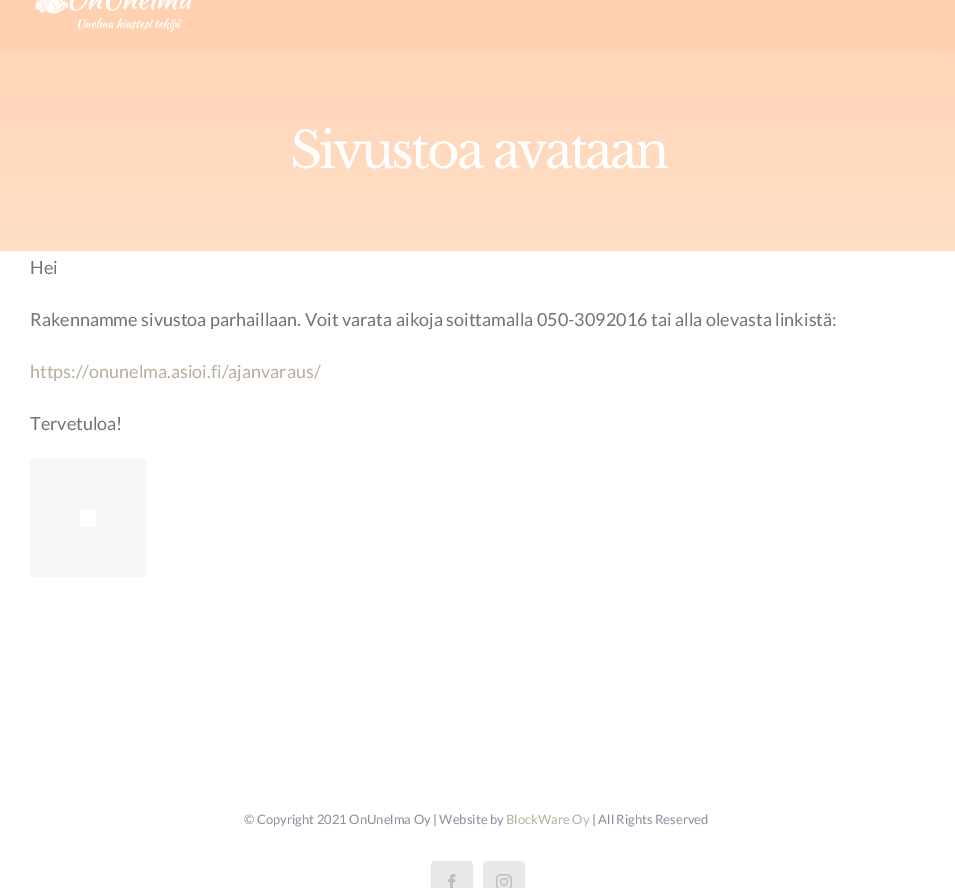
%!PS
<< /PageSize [955 888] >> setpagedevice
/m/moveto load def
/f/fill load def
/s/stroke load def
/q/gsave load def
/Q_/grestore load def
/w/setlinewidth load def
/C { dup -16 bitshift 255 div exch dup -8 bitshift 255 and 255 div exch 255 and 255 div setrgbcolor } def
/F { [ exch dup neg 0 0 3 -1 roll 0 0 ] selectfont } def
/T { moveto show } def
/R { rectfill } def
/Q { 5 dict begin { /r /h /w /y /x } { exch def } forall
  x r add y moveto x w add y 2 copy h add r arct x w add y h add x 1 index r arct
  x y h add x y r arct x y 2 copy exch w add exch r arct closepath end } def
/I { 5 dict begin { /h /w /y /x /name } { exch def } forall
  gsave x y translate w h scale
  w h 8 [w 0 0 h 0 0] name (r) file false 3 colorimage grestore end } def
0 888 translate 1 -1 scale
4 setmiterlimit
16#FFFFFF C
0 0 955 888 R
16#FFD1B0 C
0 0 955 51 R
(1.rgb) 35 0 157 33 I
(2.rgb) 0 51 955 200 I
/LibreBaskerville-Regular 50 F
16#FFFFFF C
290 168 m -3 0 (Sivustoa avataan) ashow
/Lato-Regular 18 F
16#747474 C
(Hei) 30 274 T
(Rakennamme sivustoa parhaillaan. Voit varata aikoja soittamalla 050-3092016 tai alla olevasta linkistä:) 30 326 T
16#B9AFA1 C
(https://onunelma.asioi.fi/ajanvaraus/) 30 378 T
16#747474 C
(Tervetuloa!) 30 430 T
16#F6F6F6 C
50 w
55 484 66 68 rectstroke
/Lato-Regular 13 F
16#8F8C9C C
(© Copyright 2021 OnUnelma Oy | Website by) 244 824 T
16#B9AFA1 C
(BlockWare Oy) 506 824 T
16#8F8C9C C
(| All Rights Reserved) 592 824 T
16#E9E9E9 C
431.5 861.5 41 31 3.5 Q q f Q_
1 w
s
(3.rgb) 448 874 8 14 I
483.5 861.5 41 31 3.5 Q q f Q_
s
(4.rgb) 496 874 16 14 I
showpage
